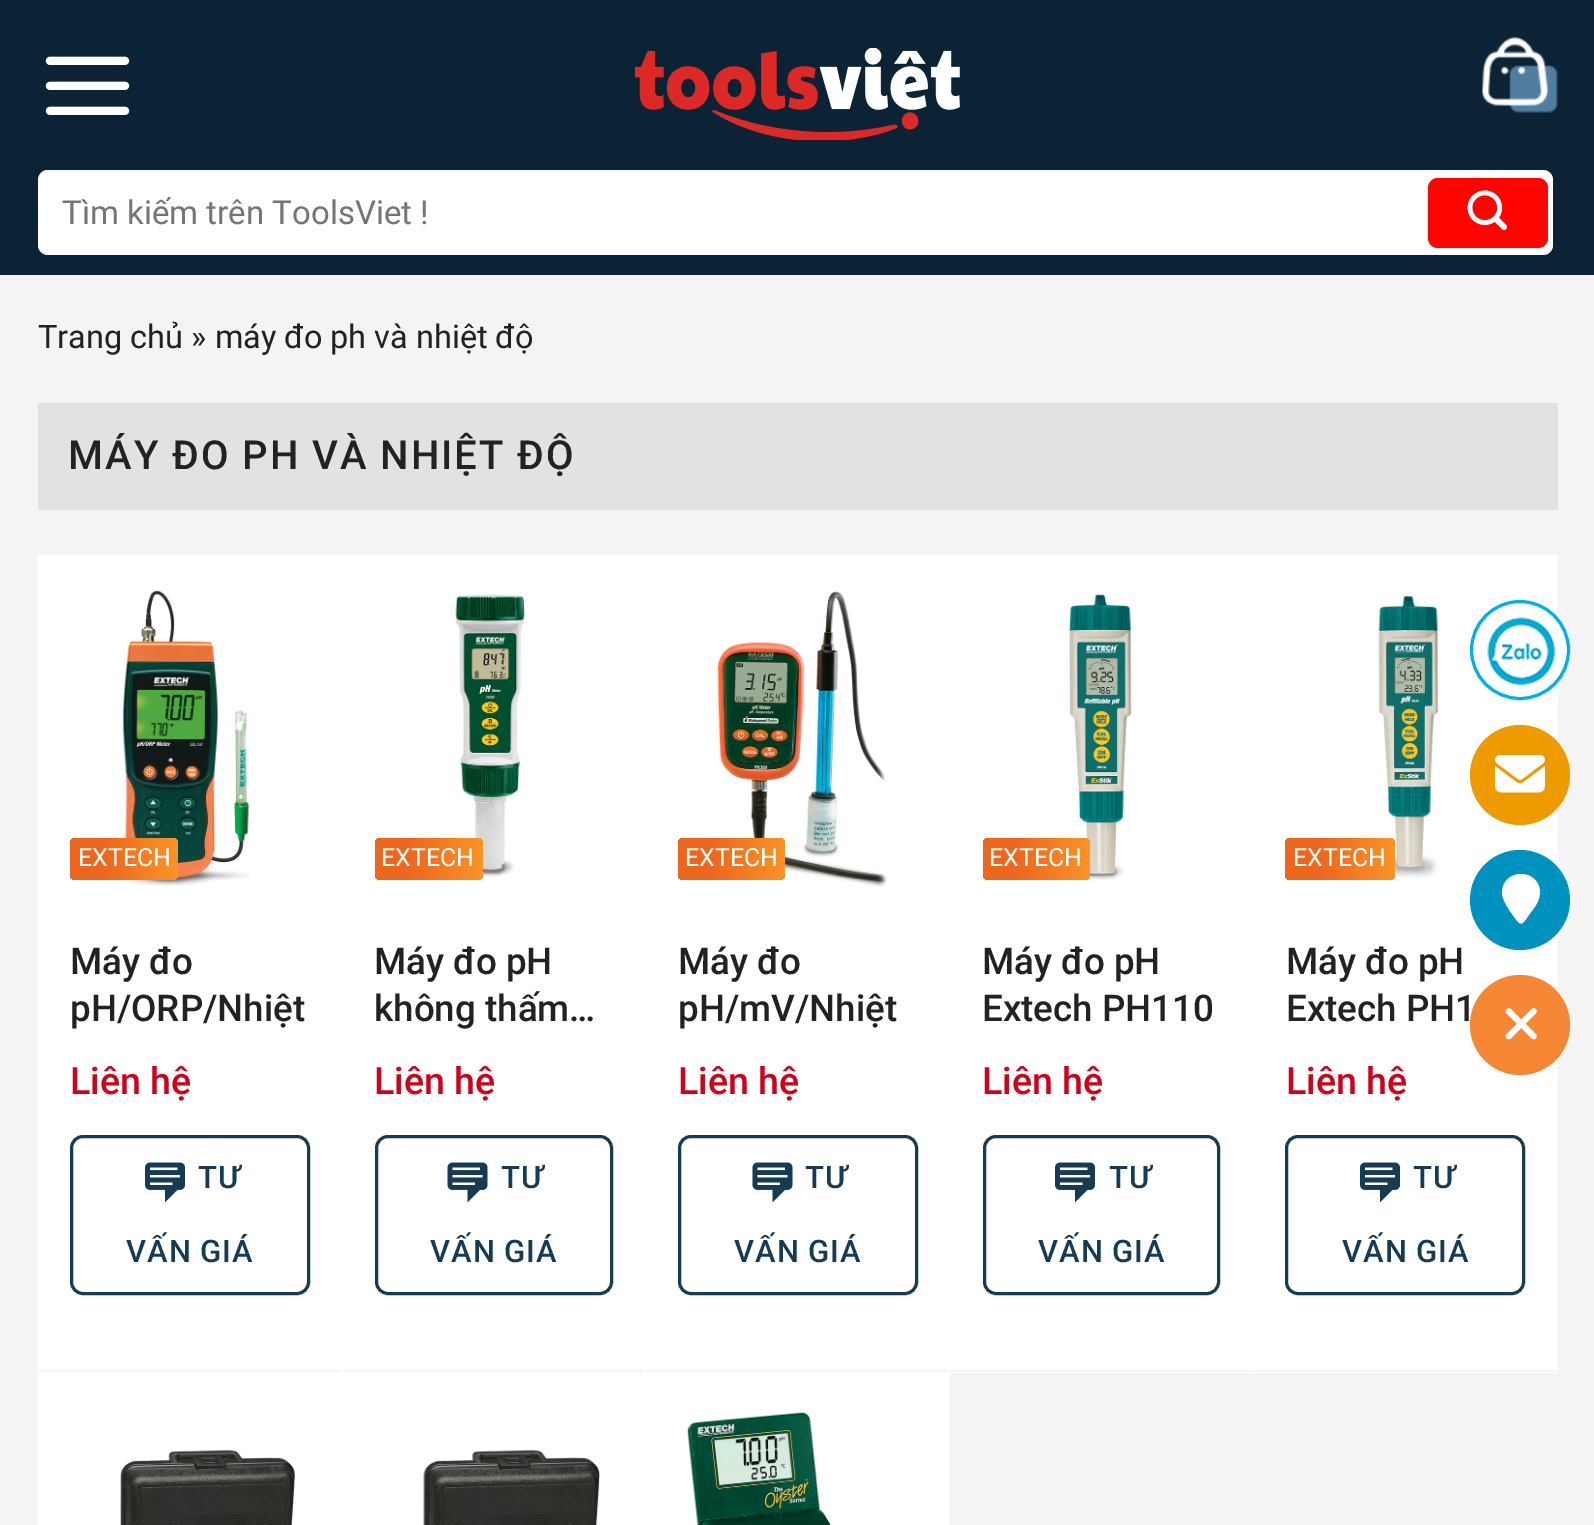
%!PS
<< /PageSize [1594 1525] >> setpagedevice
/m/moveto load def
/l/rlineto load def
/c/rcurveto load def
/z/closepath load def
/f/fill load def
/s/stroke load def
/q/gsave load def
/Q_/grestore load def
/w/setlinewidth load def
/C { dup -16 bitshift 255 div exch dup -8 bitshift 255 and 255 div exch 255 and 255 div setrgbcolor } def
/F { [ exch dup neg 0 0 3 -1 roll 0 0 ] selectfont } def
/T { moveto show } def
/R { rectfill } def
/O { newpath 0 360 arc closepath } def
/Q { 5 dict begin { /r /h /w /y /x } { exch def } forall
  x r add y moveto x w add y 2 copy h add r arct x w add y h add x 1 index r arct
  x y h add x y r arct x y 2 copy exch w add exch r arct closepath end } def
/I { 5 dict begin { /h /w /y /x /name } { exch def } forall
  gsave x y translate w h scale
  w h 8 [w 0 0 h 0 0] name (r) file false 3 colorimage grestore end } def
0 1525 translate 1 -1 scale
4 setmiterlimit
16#F4F4F4 C
0 0 1594 1525 R
16#0B2334 C
0 0 1594 275 R
(1.rgb) 45 56 85 59 I
(2.rgb) 635 48 325 92 I
(3.rgb) 1482 37 76 76 I
16#FFFFFF C
38 170 1515 85 10 Q f
/Roboto-Regular 33 F
16#757575 C
(Tìm kiếm trên ToolsViet !) 62 224 T
16#FF0400 C
1428 178 120 70 10 Q f
(4.rgb) 1467 190 40 40 I
/Roboto-Regular 32.5 F
16#222222 C
(Trang chủ » máy đo ph và nhiệt độ) 38 348 T
16#E2E2E2 C
38 403 1520 107 R
/Roboto-Medium 40 F
16#222222 C
68 469 m 2 0 (MÁY ĐO PH VÀ NHIỆT ĐỘ) ashow
16#FFFFFF C
38 555 1520 818 R
16#F4F4F4 C
342 1372 m -304 0 l 2 -2 l 300 0 l z f
(5.rgb) 122 590 127 296 I
q 70 838 108 42 5 Q clip newpath
<< /ShadingType 2 /ColorSpace /DeviceRGB /Coords [70 859 178 859] /Extend [true true] /Function << /FunctionType 3 /Domain [0 1] /Functions [<< /FunctionType 2 /Domain [0 1] /C0 [.929 .4 .114] /C1 [.929 .4 .114] /N 1 >> << /FunctionType 2 /Domain [0 1] /C0 [.929 .4 .114] /C1 [.984 .58 .145] /N 1 >>] /Bounds [.3] /Encode [0 1 0 1] >> >> shfill Q_
/Roboto-Regular 25 F
16#FFFFFF C
(EXTECH) 78 866 T
/Roboto-Medium 36.75 F
16#222222 C
(Máy đo) 70 974 T
(pH/ORP/Nhiệt) 70 1021 T
/Roboto-Medium 37.5 F
16#D0021B C
(Liên hệ) 70 1094 T
16#163B55 C
3 w
71.5 1136.5 237 157 11.5 Q s
(6.rgb) 145 1162 40 41 I
/Roboto-Medium 31 F
198 1188 m 1 0 (TƯ) ashow
126 1262 m 1 0 (VẤN GIÁ) ashow
16#F4F4F4 C
645 1372 m -303 0 l 3 -2 l 297 0 l z f
(7.rgb) 455 594 70 283 I
q 375 838 108 42 5 Q clip newpath
<< /ShadingType 2 /ColorSpace /DeviceRGB /Coords [375 859 483 859] /Extend [true true] /Function << /FunctionType 3 /Domain [0 1] /Functions [<< /FunctionType 2 /Domain [0 1] /C0 [.929 .4 .114] /C1 [.929 .4 .114] /N 1 >> << /FunctionType 2 /Domain [0 1] /C0 [.929 .4 .114] /C1 [.984 .58 .145] /N 1 >>] /Bounds [.3] /Encode [0 1 0 1] >> >> shfill Q_
/Roboto-Regular 25 F
16#FFFFFF C
(EXTECH) 381 866 T
/Roboto-Medium 36.75 F
16#222222 C
(Máy đo pH) 374 974 T
(không thấm…) 374 1021 T
/Roboto-Medium 37.5 F
16#D0021B C
(Liên hệ) 374 1094 T
16#163B55 C
376.5 1136.5 235 157 11.5 Q s
(8.rgb) 447 1162 41 41 I
/Roboto-Medium 31 F
501 1188 m 1 0 (TƯ) ashow
430 1262 m 1 0 (VẤN GIÁ) ashow
16#F4F4F4 C
950 1372 m -305 0 l 3 -2 l 300 0 l z f
(9.rgb) 717 591 170 296 I
q 678 838 107 42 5 Q clip newpath
<< /ShadingType 2 /ColorSpace /DeviceRGB /Coords [678 859 785 859] /Extend [true true] /Function << /FunctionType 3 /Domain [0 1] /Functions [<< /FunctionType 2 /Domain [0 1] /C0 [.929 .4 .114] /C1 [.929 .4 .114] /N 1 >> << /FunctionType 2 /Domain [0 1] /C0 [.929 .4 .114] /C1 [.984 .58 .145] /N 1 >>] /Bounds [.3] /Encode [0 1 0 1] >> >> shfill Q_
/Roboto-Regular 25 F
16#FFFFFF C
(EXTECH) 685 866 T
/Roboto-Medium 36.75 F
16#222222 C
(Máy đo) 678 974 T
(pH/mV/Nhiệt) 678 1021 T
/Roboto-Medium 37.5 F
16#D0021B C
(Liên hệ) 678 1094 T
16#163B55 C
679.5 1136.5 237 157 11.5 Q s
(8.rgb) 752 1162 41 41 I
/Roboto-Medium 31 F
805 1188 m 1 0 (TƯ) ashow
734 1262 m 1 0 (VẤN GIÁ) ashow
16#F4F4F4 C
1252 1372 m -302 0 l 2 -2 l 298 0 l z f
(10.rgb) 1069 594 63 286 I
q 983 838 107 42 5 Q clip newpath
<< /ShadingType 2 /ColorSpace /DeviceRGB /Coords [983 859 1090 859] /Extend [true true] /Function << /FunctionType 3 /Domain [0 1] /Functions [<< /FunctionType 2 /Domain [0 1] /C0 [.929 .4 .114] /C1 [.929 .4 .114] /N 1 >> << /FunctionType 2 /Domain [0 1] /C0 [.929 .4 .114] /C1 [.984 .58 .145] /N 1 >>] /Bounds [.3] /Encode [0 1 0 1] >> >> shfill Q_
/Roboto-Regular 25 F
16#FFFFFF C
(EXTECH) 989 866 T
/Roboto-Medium 36.75 F
16#222222 C
(Máy đo pH) 982 974 T
(Extech PH110) 982 1021 T
/Roboto-Medium 37.5 F
16#D0021B C
(Liên hệ) 982 1094 T
16#163B55 C
984.5 1136.5 234 157 11.5 Q s
(6.rgb) 1055 1162 40 41 I
/Roboto-Medium 31 F
1109 1188 m 1 0 (TƯ) ashow
1038 1262 m 1 0 (VẤN GIÁ) ashow
16#F4F4F4 C
1558 1372 m -306 0 l 3 -2 l 300 0 l z f
(11.rgb) 1378 596 61 282 I
q 1285 838 110 42 5 Q clip newpath
<< /ShadingType 2 /ColorSpace /DeviceRGB /Coords [1285 859 1395 859] /Extend [true true] /Function << /FunctionType 3 /Domain [0 1] /Functions [<< /FunctionType 2 /Domain [0 1] /C0 [.929 .4 .114] /C1 [.929 .4 .114] /N 1 >> << /FunctionType 2 /Domain [0 1] /C0 [.929 .4 .114] /C1 [.984 .58 .145] /N 1 >>] /Bounds [.3] /Encode [0 1 0 1] >> >> shfill Q_
/Roboto-Regular 25 F
16#FFFFFF C
(EXTECH) 1293 866 T
/Roboto-Medium 36.75 F
16#222222 C
(Máy đo pH) 1286 974 T
(Extech PH1) 1286 1021 T
/Roboto-Medium 37.5 F
16#D0021B C
(Liên hệ) 1286 1094 T
16#163B55 C
1286.5 1136.5 237 157 11.5 Q s
(6.rgb) 1360 1162 40 41 I
/Roboto-Medium 31 F
1413 1188 m 1 0 (TƯ) ashow
1342 1262 m 1 0 (VẤN GIÁ) ashow
16#FFFFFF C
38 1373 912 152 R
(12.rgb) 120 1449 175 76 I
(13.rgb) 423 1449 177 76 I
(14.rgb) 687 1412 144 113 I
1520 650 50 O f
(15.rgb) 1487 617 68 68 I
16#00AFEE C
1520 650 48.5 O s
16#EE9B00 C
1520 775 50 O f
(16.rgb) 1495 755 50 38 I
16#0092BF C
1520 900 50 O f
16#FFFFFF C
1540 892 m 0 8 -5 15 -9 20 c -10 14 -9 16 -19 2 c -4 -6 -10 -14 -10 -22 c 1 -24 37 -24 38 0 c z f
16#F58634 C
1520 1025 50 O f
(17.rgb) 1505 1008 32 32 I
showpage
